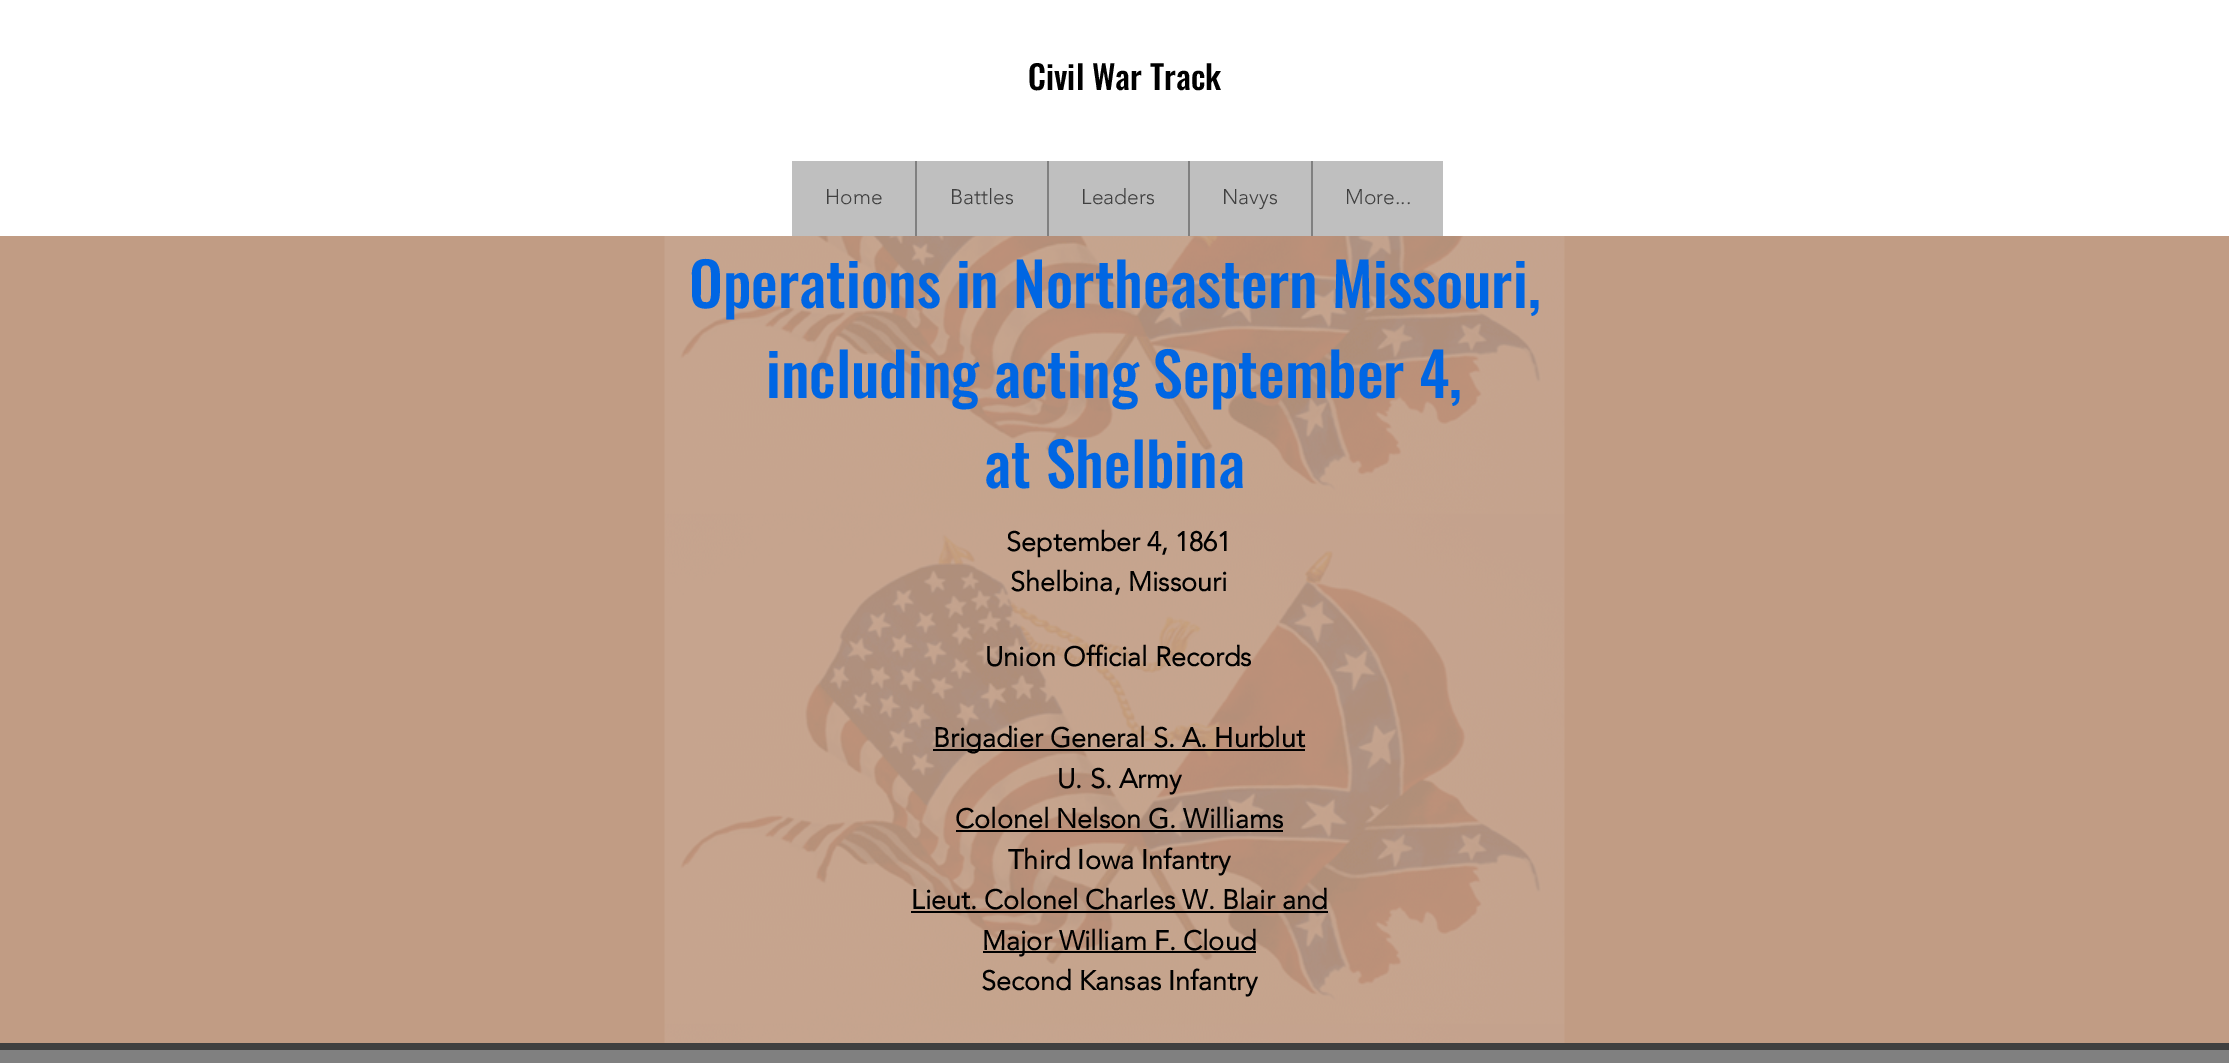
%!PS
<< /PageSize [2229 1063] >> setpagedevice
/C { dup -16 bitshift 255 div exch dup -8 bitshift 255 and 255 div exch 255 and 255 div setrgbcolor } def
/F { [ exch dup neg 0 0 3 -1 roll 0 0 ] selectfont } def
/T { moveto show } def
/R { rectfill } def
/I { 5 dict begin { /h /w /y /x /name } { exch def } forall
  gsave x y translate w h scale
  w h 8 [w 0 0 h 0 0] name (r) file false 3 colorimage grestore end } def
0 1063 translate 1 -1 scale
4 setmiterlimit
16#C19C84 C
0 0 2229 1063 R
16#FFFFFF C
0 0 2229 236 R
/Oswald-Medium 33 F
16#000000 C
(Civil War Track) 1028 90 T
16#BFBFBF C
792 161 651 75 R
/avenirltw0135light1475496-Light 21 F
16#404040 C
(Home) 825 204 T
16#808080 C
915 161 2 75 R
16#404040 C
(Battles) 950 204 T
16#808080 C
1047 161 2 75 R
16#404040 C
(Leaders) 1081 204 T
16#808080 C
1188 161 2 75 R
16#404040 C
(Navys) 1222 204 T
16#808080 C
1311 161 2 75 R
16#404040 C
(More...) 1345 204 T
(1.rgb) 664 236 901 807 I
/Oswald-Medium 60 F
16#0066E3 C
(Operations in Northeastern Missouri,) 689 308 T
(including acting September 4,) 766 398 T
(at Shelbina) 984 488 T
/avenirltw0135light1475496-Bold 27 F
16#000000 C
(September 4, 1861) 1006 551 T
(Shelbina, Missouri) 1010 591 T
(Union Official Records) 985 666 T
933 749 372 2 R
(Brigadier General S. A. Hurblut) 933 747 T
(U. S. Army) 1057 788 T
(Colonel Nelson G. Williams) 955 828 T
956 830 327 2 R
(Third Iowa Infantry) 1008 869 T
(Lieut. Colonel Charles W. Blair and) 911 909 T
911 911 417 2 R
983 951 273 2 R
(Major William F. Cloud) 982 950 T
(Second Kansas Infantry) 981 990 T
16#808080 C
0 1050 2229 13 R
16#404040 C
0 1043 2229 7 R
showpage
